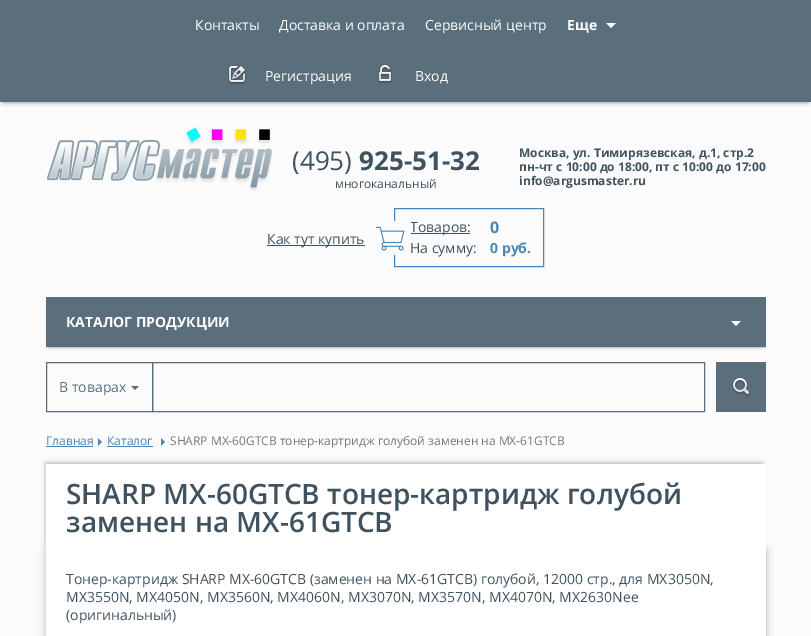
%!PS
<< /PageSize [811 636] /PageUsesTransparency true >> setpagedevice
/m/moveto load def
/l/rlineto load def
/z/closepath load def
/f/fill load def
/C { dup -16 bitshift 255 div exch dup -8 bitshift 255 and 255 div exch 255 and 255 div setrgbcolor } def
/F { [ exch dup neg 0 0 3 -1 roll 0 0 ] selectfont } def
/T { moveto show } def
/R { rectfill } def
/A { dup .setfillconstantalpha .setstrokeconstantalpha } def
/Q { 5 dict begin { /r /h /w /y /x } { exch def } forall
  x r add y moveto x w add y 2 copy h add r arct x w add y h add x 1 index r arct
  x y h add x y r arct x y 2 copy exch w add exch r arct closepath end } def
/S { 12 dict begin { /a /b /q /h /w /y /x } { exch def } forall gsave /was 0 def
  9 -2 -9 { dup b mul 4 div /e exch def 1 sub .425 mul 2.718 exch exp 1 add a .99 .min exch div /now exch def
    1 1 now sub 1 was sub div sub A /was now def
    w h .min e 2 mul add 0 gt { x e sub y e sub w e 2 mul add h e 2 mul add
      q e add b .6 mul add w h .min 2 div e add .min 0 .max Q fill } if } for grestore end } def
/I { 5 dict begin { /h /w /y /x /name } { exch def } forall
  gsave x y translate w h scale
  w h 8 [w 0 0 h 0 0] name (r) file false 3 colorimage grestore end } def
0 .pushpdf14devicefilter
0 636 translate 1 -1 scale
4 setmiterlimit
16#FBFBFB C
0 0 811 636 R
16#000000 C
3 6 805 96 0 2.5 .5 S
16#5B6E7C C
0 0 811 102 R
/OpenSans-Regular 14 F
16#FFFFFF C
(Контакты) 195 30 T
(Доставка и оплата) 279 30 T
(Сервисный центр) 425 30 T
/OpenSans-Bold 14 F
(Еще) 567 30 T
606 23 m 10 0 l -5 5 l z f
(1.rgb) 228 65 18 20 I
/OpenSans-Regular 14 F
(Регистрация) 265 81 T
(2.rgb) 378 64 14 20 I
(Вход) 415 81 T
(3.rgb) 47 127 226 64 I
/OpenSans-Regular 26 F
16#40525E C
(\(495\)) 292 170 T
/OpenSans-Bold 26 F
(925-51-32) 359 170 T
/OpenSans-Regular 12 F
(многоканальный) 335 188 T
/OpenSans-Bold 12 F
(Москва, ул. Тимирязевская, д.1, стр.2) 519 157 T
(пн-чт с 10:00 до 18:00, пт с 10:00 до 17:00) 519 171 T
(info@argusmaster.ru) 519 185 T
267 245 98 1 R
/OpenSans-Regular 14 F
(Как тут купить) 267 244 T
16#4987B8 C
394.5 208.5 149 58 rectstroke
16#40525E C
410 233 60 1 R
(Товаров:) 410 232 T
16#FBFBFB C
394 221 17 34 R
/OpenSans-Bold 16 F
16#4B88B7 C
(0) 490 233 T
(4.rgb) 375 226 30 25 I
/OpenSans-Regular 14 F
16#40525E C
(На сумму:) 410 253 T
/OpenSans-Bold 14 F
16#4B88B7 C
(0 руб.) 490 253 T
16#000000 C
48 301 716 46 0 1.5 .5 S
16#5B6E7C C
46 297 720 50 R
16#FFFFFF C
(КАТАЛОГ ПРОДУКЦИИ) 66 327 T
731 321 m 10 0 l -5 5 l z f
16#5B6E7C C
46.5 362.5 106 49 rectstroke
/OpenSans-Regular 14 F
(В товарах) 59 392 T
131 386 m 8 0 l -4 4 l z f
152.5 362.5 552 49 rectstroke
716 362 50 50 R
(5.rgb) 732 377 18 20 I
/OpenSans-Regular 12 F
16#4B88B7 C
(Главная) 46 445 T
46 446 47 1 R
98 446 m 0 -8 l 4 4 l z f
(Каталог) 107 445 T
107 446 46 1 R
161 446 m 0 -8 l 4 4 l z f
16#777777 C
(SHARP MX-60GTCB тонер-картридж голубой заменен на MX-61GTCB) 170 445 T
16#000000 C
46 550 720 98 0 4 .3 S
16#FFFFFF C
46 550 720 86 R
16#000000 C
46 463 716 82 0 2.5 .3 S
16#FFFFFF C
46 464 720 86 R
/OpenSans-SemiBold 28 F
16#40525E C
(SHARP MX-60GTCB тонер-картридж голубой) 66 504 T
(заменен на MX-61GTCB) 66 532 T
/OpenSans-Regular 14 F
(Тонер-картридж SHARP MX-60GTCB \(заменен на MX-61GTCB\) голубой, 12000 стр., для MX3050N,) 66 584 T
(MX3550N, MX4050N, MX3560N, MX4060N, MX3070N, MX3570N, MX4070N, MX2630Nee) 66 602 T
(\(оригинальный\)) 66 620 T
.poppdf14devicefilter showpage
